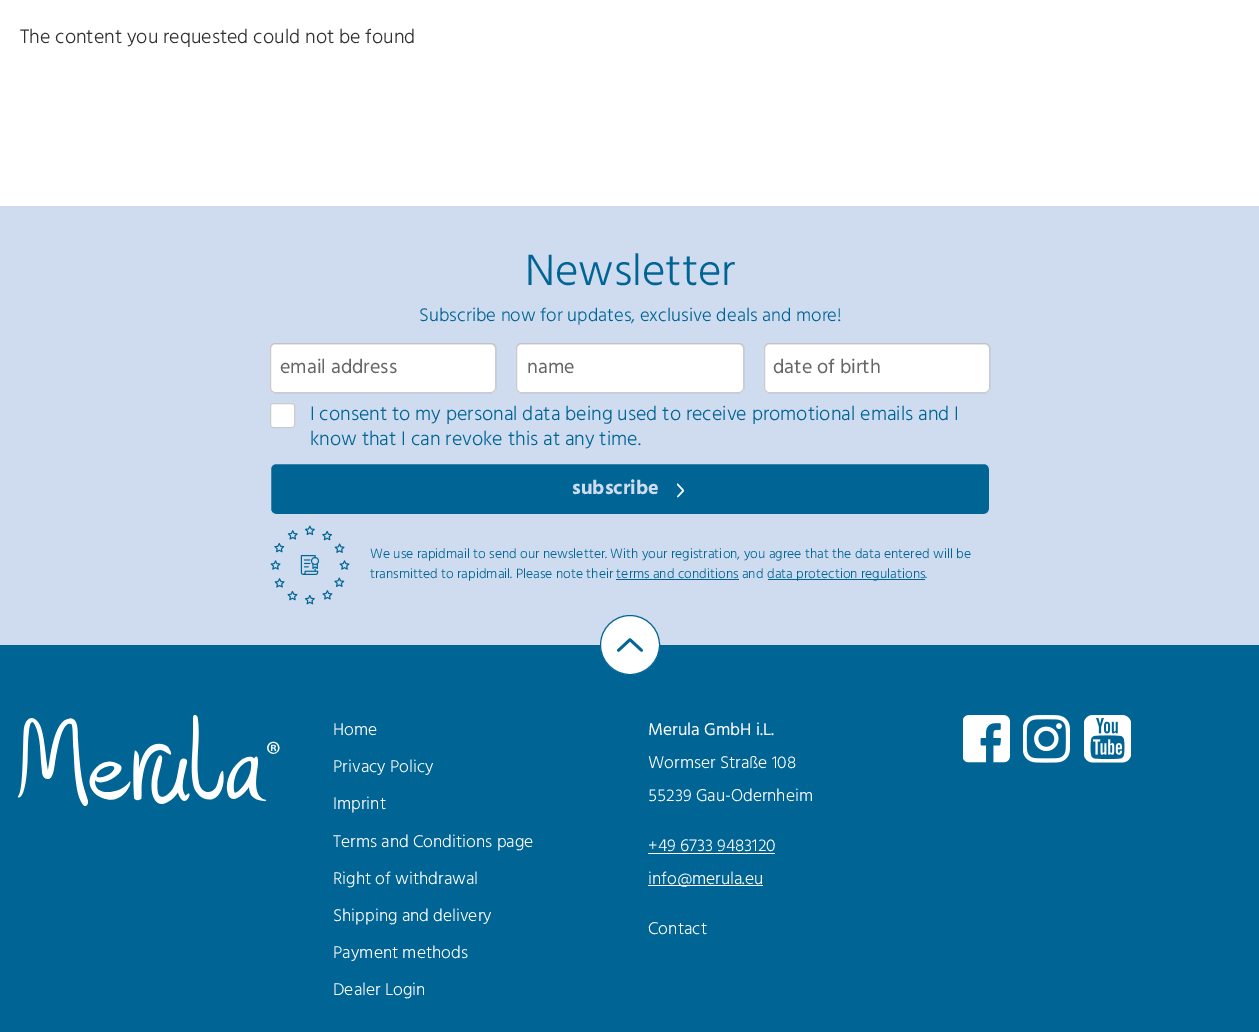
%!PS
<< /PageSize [1259 1032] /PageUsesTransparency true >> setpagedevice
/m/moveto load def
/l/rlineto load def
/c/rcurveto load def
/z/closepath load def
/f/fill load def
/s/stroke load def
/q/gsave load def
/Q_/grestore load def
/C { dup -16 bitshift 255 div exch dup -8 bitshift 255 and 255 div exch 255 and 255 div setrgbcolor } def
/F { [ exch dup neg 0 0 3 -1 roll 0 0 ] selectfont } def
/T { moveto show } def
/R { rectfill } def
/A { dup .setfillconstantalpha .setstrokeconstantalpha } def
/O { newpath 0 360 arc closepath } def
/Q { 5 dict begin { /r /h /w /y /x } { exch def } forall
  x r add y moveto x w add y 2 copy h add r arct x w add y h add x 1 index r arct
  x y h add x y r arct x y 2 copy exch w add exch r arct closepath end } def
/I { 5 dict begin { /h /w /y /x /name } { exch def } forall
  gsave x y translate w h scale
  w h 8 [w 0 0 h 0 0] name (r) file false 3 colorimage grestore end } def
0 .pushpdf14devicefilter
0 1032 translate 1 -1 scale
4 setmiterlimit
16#FFFFFF C
0 0 1259 1032 R
/Hind-Light 20 F
16#303030 C
(The content you requested could not be found) 20 43 T
16#CFDBEE C
0 206 1259 439 R
/Hind-Light 45 F
16#006594 C
(Newsletter) 525 285 T
/Hind-Light 18.75 F
(Subscribe now for updates, exclusive deals and more!) 419 321 T
16#FFFFFF C
270 343 226 50 5 Q f
0.2 A
16#000000 C
270.5 343.5 225 49 4.5 Q s
0.05 A
275 345 m 216 0 l 3 0 5 2 5 5 c 0 -3 0 -6 -4 -7 c -217 0 l -4 0 -5 4 -5 7 c 0 -3 2 -5 5 -5 c z f
/Hind-Regular 20 F
1 A
16#666666 C
(email address) 280 373 T
16#FFFFFF C
516 343 228 50 5 Q f
0.2 A
16#000000 C
516.5 343.5 227 49 4.5 Q s
0.05 A
521 345 m 218 0 l 3 0 5 2 5 5 c 0 -3 0 -6 -4 -7 c -219 0 l -4 0 -5 4 -5 7 c 0 -3 2 -5 5 -5 c z f
1 A
16#666666 C
(name) 527 373 T
16#FFFFFF C
764 343 226 50 5 Q f
0.2 A
16#000000 C
764.5 343.5 225 49 4.5 Q s
0.05 A
769 345 m 216 0 l 3 0 5 2 5 5 c 0 -3 0 -6 -4 -7 c -217 0 l -4 0 -5 4 -5 7 c 0 -3 2 -5 5 -5 c z f
1 A
16#666666 C
(date of birth) 773 373 T
16#FFFFFF C
270.5 403.5 24 24 2.5 Q q f Q_
16#CCCCCC C
s
/Hind-Light 20 F
16#006594 C
(I consent to my personal data being used to receive promotional emails and I) 310 420 T
(know that I can revoke this at any time.) 310 445 T
270.5 463.5 719 51 5.5 Q q f Q_
16#CFDBEE C
s
/Hind-Bold 20 F
(subscribe) 572 494 T
(1.rgb) 677 483 8 15 I
(2.rgb) 270 525 80 80 I
/Hind-Light 13.75 F
16#006594 C
(We use rapidmail to send our newsletter. With your registration, you agree that the data entered will be) 370 558 T
(transmitted to rapidmail. Please note their terms and conditions and) 370 578 T
768 579 157 1 R
(data protection regulations.) 767 578 T
616 579 123 1 R
0 645 1259 387 R
16#FFFFFF C
630 645 29.5 O q f Q_
16#006594 C
s
(3.rgb) 616 638 28 14 I
(4.rgb) 17 714 263 92 I
/Hind-Light 17.5 F
16#FFFFFF C
(Home) 333 735 T
(Privacy Policy) 333 772 T
(Imprint) 333 809 T
(Terms and Conditions page) 333 847 T
(Right of withdrawal) 333 884 T
(Shipping and delivery) 333 921 T
(Payment methods) 333 958 T
(Dealer Login) 333 995 T
/Hind-Regular 17.5 F
(Merula GmbH i.L.) 648 735 T
/Hind-Light 17.5 F
(Wormser Straße 108) 648 768 T
(55239 Gau-Odernheim) 648 801 T
(+49 6733 9483120) 648 851 T
648 853 127 1 R
648 885 115 1 R
(info@merula.eu) 648 884 T
(Contact) 648 934 T
(5.rgb) 963 715 47 48 I
(6.rgb) 1023 715 47 48 I
(7.rgb) 1084 715 47 48 I
.poppdf14devicefilter showpage
